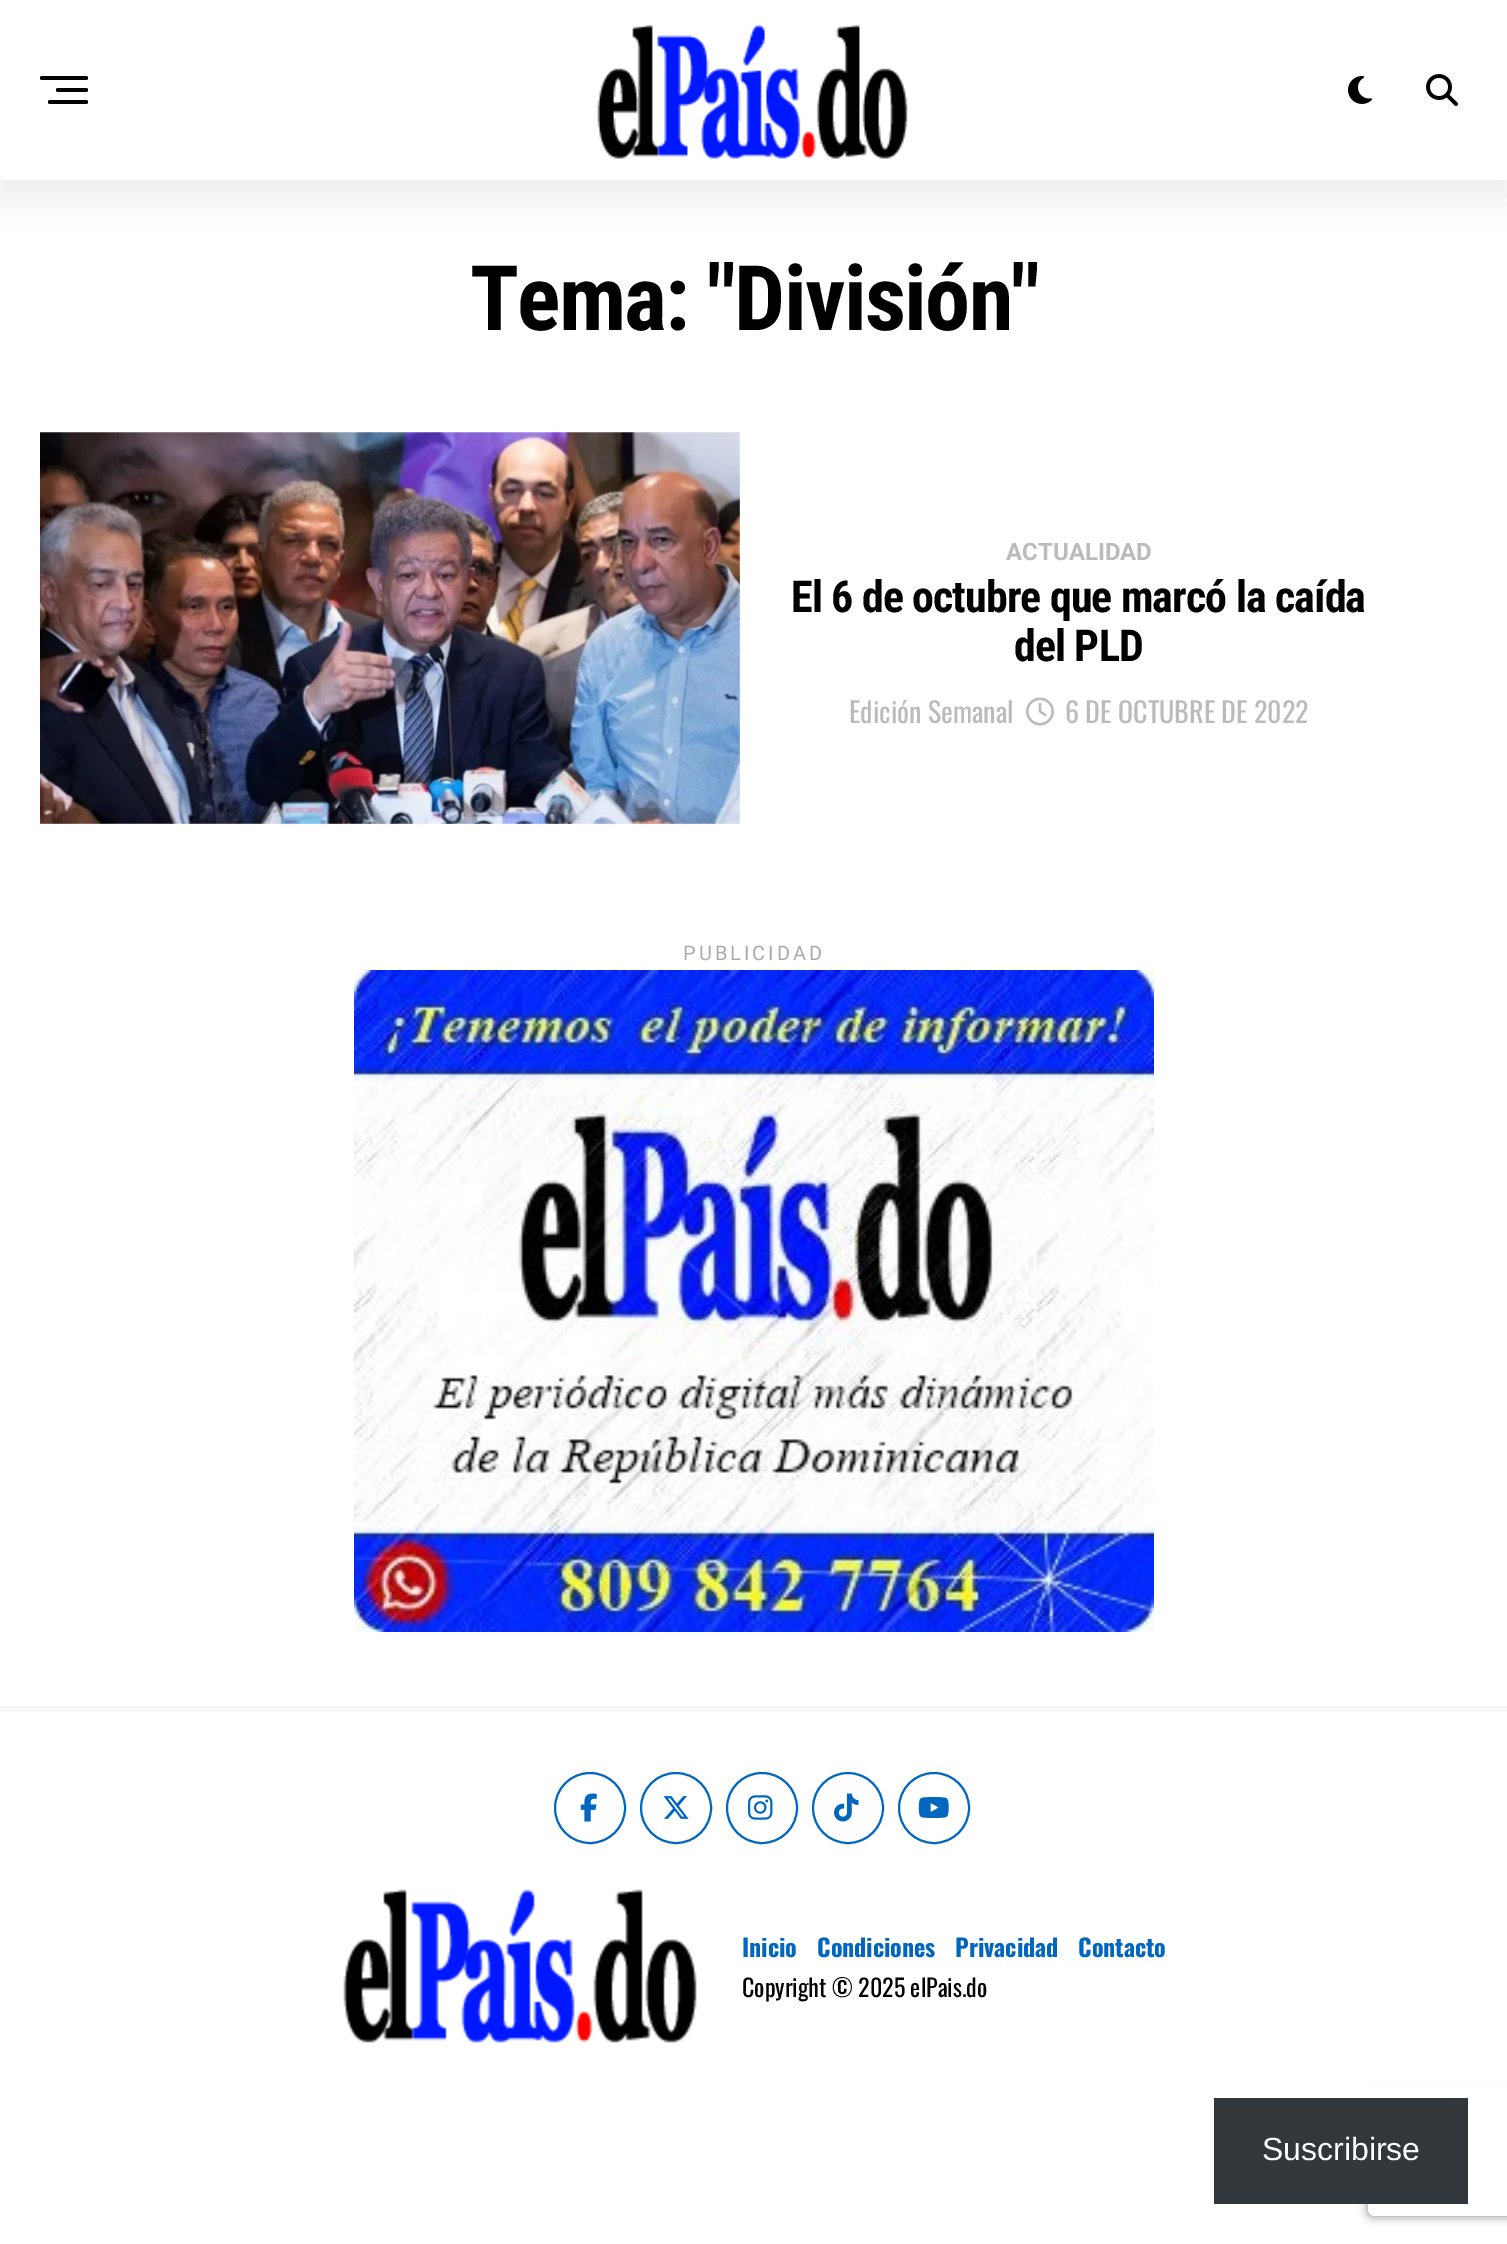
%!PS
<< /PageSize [1507 2244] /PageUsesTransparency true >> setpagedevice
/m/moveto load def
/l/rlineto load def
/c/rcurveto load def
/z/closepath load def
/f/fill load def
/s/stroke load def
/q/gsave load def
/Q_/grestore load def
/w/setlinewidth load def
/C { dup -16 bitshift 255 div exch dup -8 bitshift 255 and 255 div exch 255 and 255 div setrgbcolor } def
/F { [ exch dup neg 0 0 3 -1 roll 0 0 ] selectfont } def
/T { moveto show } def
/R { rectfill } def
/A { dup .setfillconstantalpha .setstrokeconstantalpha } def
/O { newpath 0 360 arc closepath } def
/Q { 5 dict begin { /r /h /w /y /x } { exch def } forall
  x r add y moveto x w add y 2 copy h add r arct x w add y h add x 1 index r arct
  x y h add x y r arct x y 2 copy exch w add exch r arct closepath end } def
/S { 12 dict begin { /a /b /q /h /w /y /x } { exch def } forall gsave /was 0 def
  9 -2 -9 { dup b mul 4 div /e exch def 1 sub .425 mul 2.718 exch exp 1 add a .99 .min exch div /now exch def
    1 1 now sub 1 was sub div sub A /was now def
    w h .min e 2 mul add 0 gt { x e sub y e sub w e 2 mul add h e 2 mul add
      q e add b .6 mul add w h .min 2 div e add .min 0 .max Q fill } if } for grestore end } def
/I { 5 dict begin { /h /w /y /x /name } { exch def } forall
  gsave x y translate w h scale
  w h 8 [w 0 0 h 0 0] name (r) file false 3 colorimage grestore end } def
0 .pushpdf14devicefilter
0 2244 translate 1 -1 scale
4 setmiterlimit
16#FFFFFF C
0 0 1507 2244 R
16#15151E C
0 16 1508 180 0 16 .08 S
16#FFFFFF C
0 0 1507 180 R
16#000000 C
40 76 48 4 2 Q f
56 88 32 4 2 Q f
48 100 40 4 2 Q f
(1.rgb) 597 24 311 135 I
(2.rgb) 1348 76 24 28 I
(3.rgb) 1426 74 32 32 I
/RobotoCondensed-Bold 90.5 F
470 330 m -1.75 0 (Tema: "División") ashow
(4.rgb) 40 432 700 392 I
/Roboto-Bold 24 F
16#BBBBBB C
(ACTUALIDAD) 1006 560 T
/RobotoCondensed-Bold 44 F
16#000000 C
791 612 m -.9 0 (El 6 de octubre que marcó la caída) ashow
1014 661 m -.9 0 (del PLD) ashow
/Oswald-Regular 28 F
16#BBBBBB C
(Edición Semanal) 849 723 T
(5.rgb) 1026 697 28 29 I
(6 DE OCTUBRE DE 2022) 1065 723 T
/Roboto-Regular 20 F
16#AAAAAA C
683 960 m 3 0 (PUBLICIDAD) ashow
(6.rgb) 354 970 800 662 I
q
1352 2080 m 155 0 l 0 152 l -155 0 l z 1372 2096 m 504 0 l 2 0 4 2 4 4 c 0 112 l 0 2 -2 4 -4 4 c -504 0 l -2 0 -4 -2 -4 -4 c 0 -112 l 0 -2 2 -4 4 -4 c z eoclip newpath
16#808080 C
1368 2096 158 120 4 5 1 S
Q_
16#FFFFFF C
1358 2086 149 18 R
16#F7F7F7 C
0 1706 1507 6 R
16#0066BF C
2 w
590 1808 35 O s
(7.rgb) 580 1793 17 29 I
676 1808 35 O s
(8.rgb) 663 1796 26 23 I
762 1808 35 O s
(9.rgb) 748 1795 25 25 I
848 1808 35 O s
(10.rgb) 834 1793 25 29 I
934 1808 35 O s
(11.rgb) 918 1797 31 21 I
(12.rgb) 343 1889 354 154 I
/Oswald-Bold 24 F
(Inicio) 742 1957 T
(Condiciones) 817 1957 T
(Privacidad) 955 1957 T
(Contacto) 1078 1957 T
/Oswald-Regular 24 F
16#000000 C
(Copyright © 2025 elPais.do) 742 1997 T
16#32373C C
1214 2098 254 106 R
/LiberationSans-Regular 32 F
16#FFFFFF C
(Suscribirse) 1262 2160 T
.poppdf14devicefilter showpage
